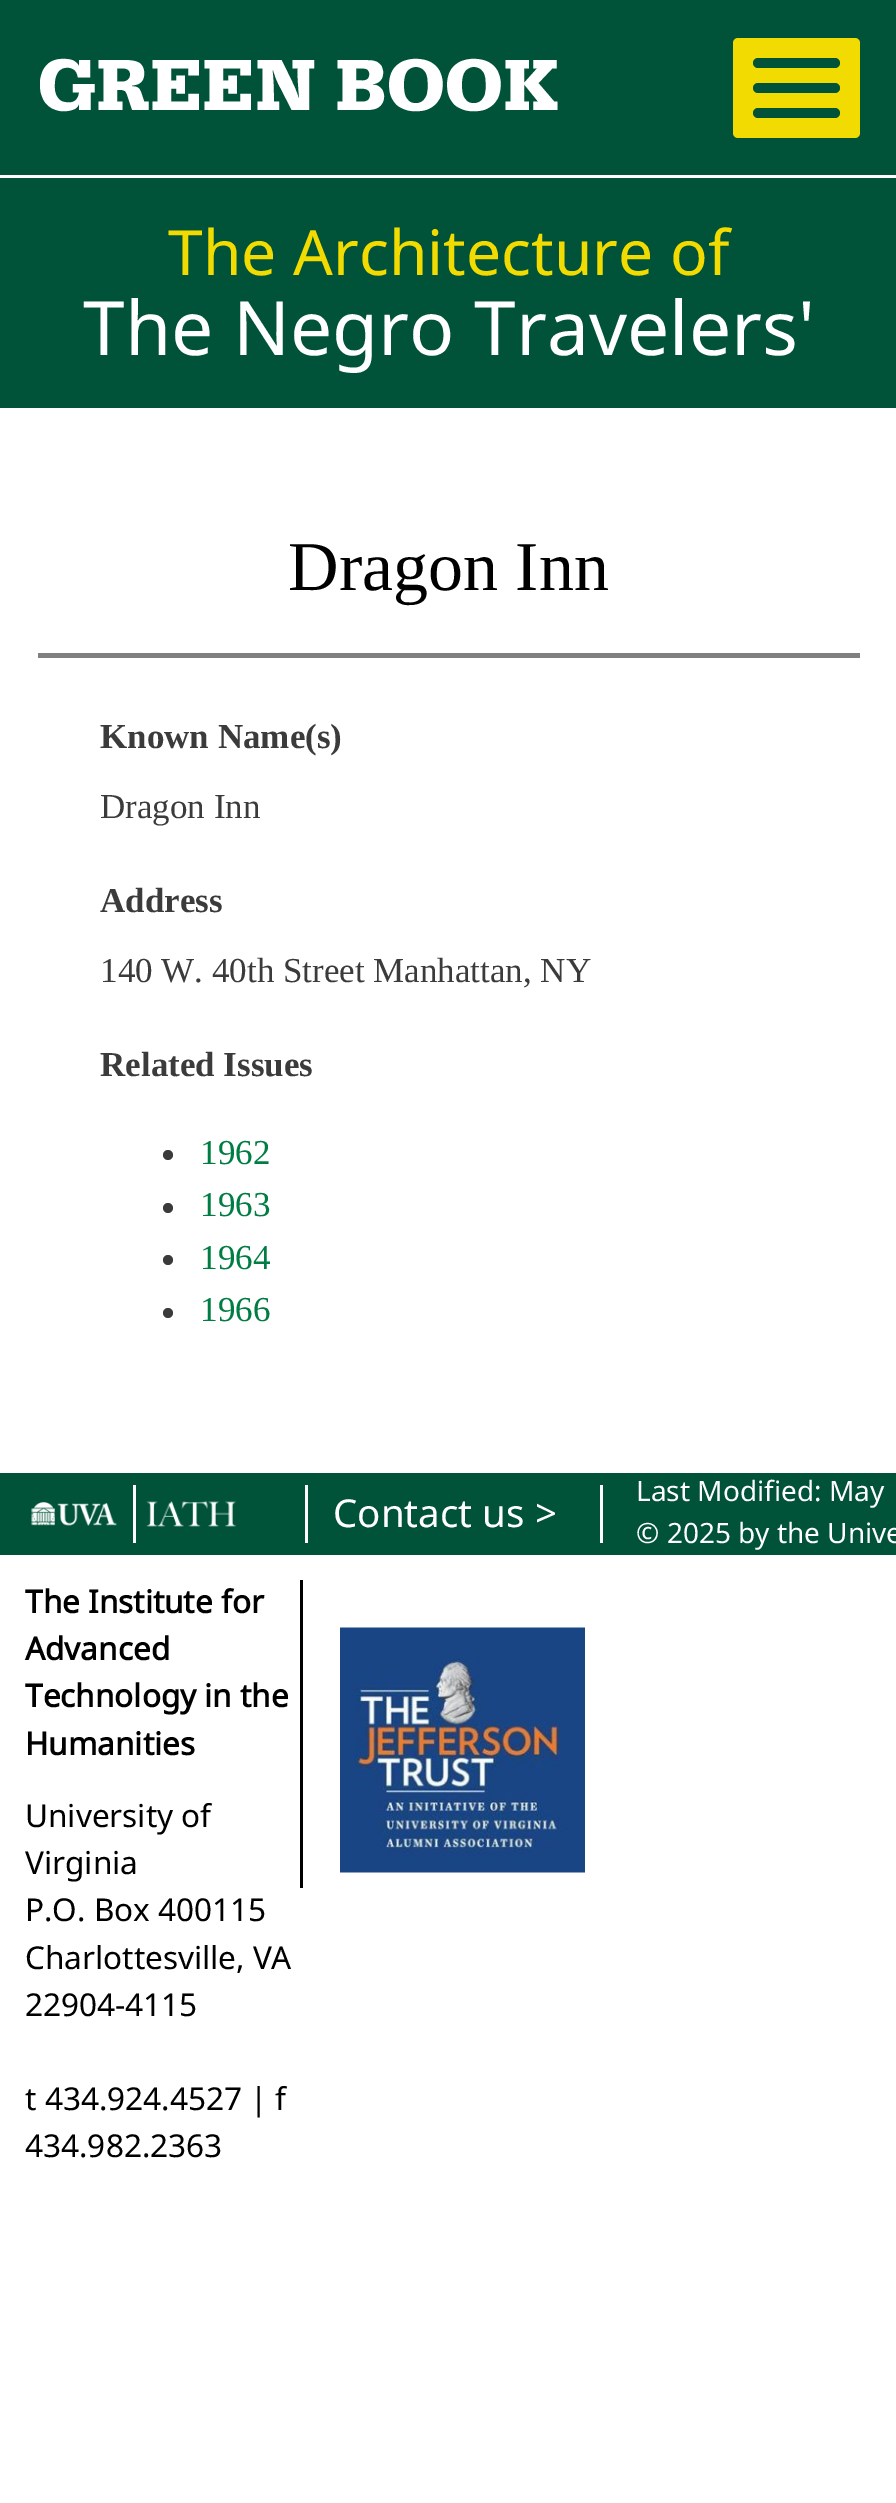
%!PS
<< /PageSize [896 2503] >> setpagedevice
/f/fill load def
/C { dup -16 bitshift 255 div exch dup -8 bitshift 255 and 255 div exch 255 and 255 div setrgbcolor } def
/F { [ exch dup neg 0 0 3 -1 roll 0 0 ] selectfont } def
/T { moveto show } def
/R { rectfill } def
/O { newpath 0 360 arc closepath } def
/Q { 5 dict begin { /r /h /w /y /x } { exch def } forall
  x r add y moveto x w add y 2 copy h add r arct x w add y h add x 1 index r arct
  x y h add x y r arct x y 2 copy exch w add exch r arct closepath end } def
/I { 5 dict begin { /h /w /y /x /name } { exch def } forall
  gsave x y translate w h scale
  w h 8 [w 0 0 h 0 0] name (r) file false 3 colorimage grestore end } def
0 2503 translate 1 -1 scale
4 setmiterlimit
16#FFFFFF C
0 0 896 2503 R
16#005238 C
0 0 896 408 R
/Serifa-Bold 75 F
16#FFFFFF C
(GREEN BOOK) 38 110 T
16#F2DB00 C
733 38 127 100 5 Q f
16#005238 C
753 58 87 10 5 Q f
753 83 87 10 5 Q f
753 108 87 10 5 Q f
16#FFFFFF C
0 175 896 3 R
/NotoSans-Regular 62.5 F
16#F2DB00 C
(The Architecture of) 168 275 T
/NotoSans-Regular 75 F
16#FFFFFF C
(The Negro Travelers') 83 355 T
/LiberationSerif-Regular 70 F
16#000000 C
(Dragon Inn) 288 590 T
16#808080 C
38 653 822 5 R
/LiberationSerif-Bold 35 F
16#3B3B3B C
(Known Name\(s\)) 100 748 T
/LiberationSerif-Regular 35 F
(Dragon Inn) 100 818 T
/LiberationSerif-Bold 35 F
(Address) 100 912 T
/LiberationSerif-Regular 35 F
(140 W. 40th Street Manhattan, NY) 100 982 T
/LiberationSerif-Bold 35 F
(Related Issues) 100 1076 T
168 1155 5 O f
/LiberationSerif-Regular 35 F
16#007D43 C
(1962) 200 1164 T
16#3B3B3B C
168 1208 5 O f
16#007D43 C
(1963) 200 1216 T
16#3B3B3B C
168 1260 5 O f
16#007D43 C
(1964) 200 1269 T
16#3B3B3B C
168 1313 5 O f
16#007D43 C
(1966) 200 1321 T
16#005238 C
0 1473 896 82 R
(1.rgb) 31 1501 86 25 I
16#FFFFFF C
133 1485 3 58 R
(2.rgb) 146 1501 90 26 I
600 1485 3 58 R
305 1485 3 58 R
/NotoSans-Regular 38.5 F
(Contact us >) 333 1527 T
/NotoSans-Regular 28 F
(Last Modified: May) 636 1501 T
(© 2025 by the Unive) 636 1543 T
/NotoSans-Bold 31.5 F
16#000000 C
(The Institute for) 25 1613 T
(Advanced) 25 1660 T
(Technology in the) 25 1707 T
(Humanities) 25 1755 T
/NotoSans-Regular 31.5 F
(University of) 25 1827 T
(Virginia) 25 1874 T
(P.O. Box 400115) 25 1921 T
(Charlottesville, VA) 25 1969 T
(22904-4115) 25 2016 T
(t 434.924.4527 | f) 25 2110 T
(434.982.2363) 25 2157 T
300 1580 3 308 R
(3.rgb) 340 1627 245 246 I
showpage
